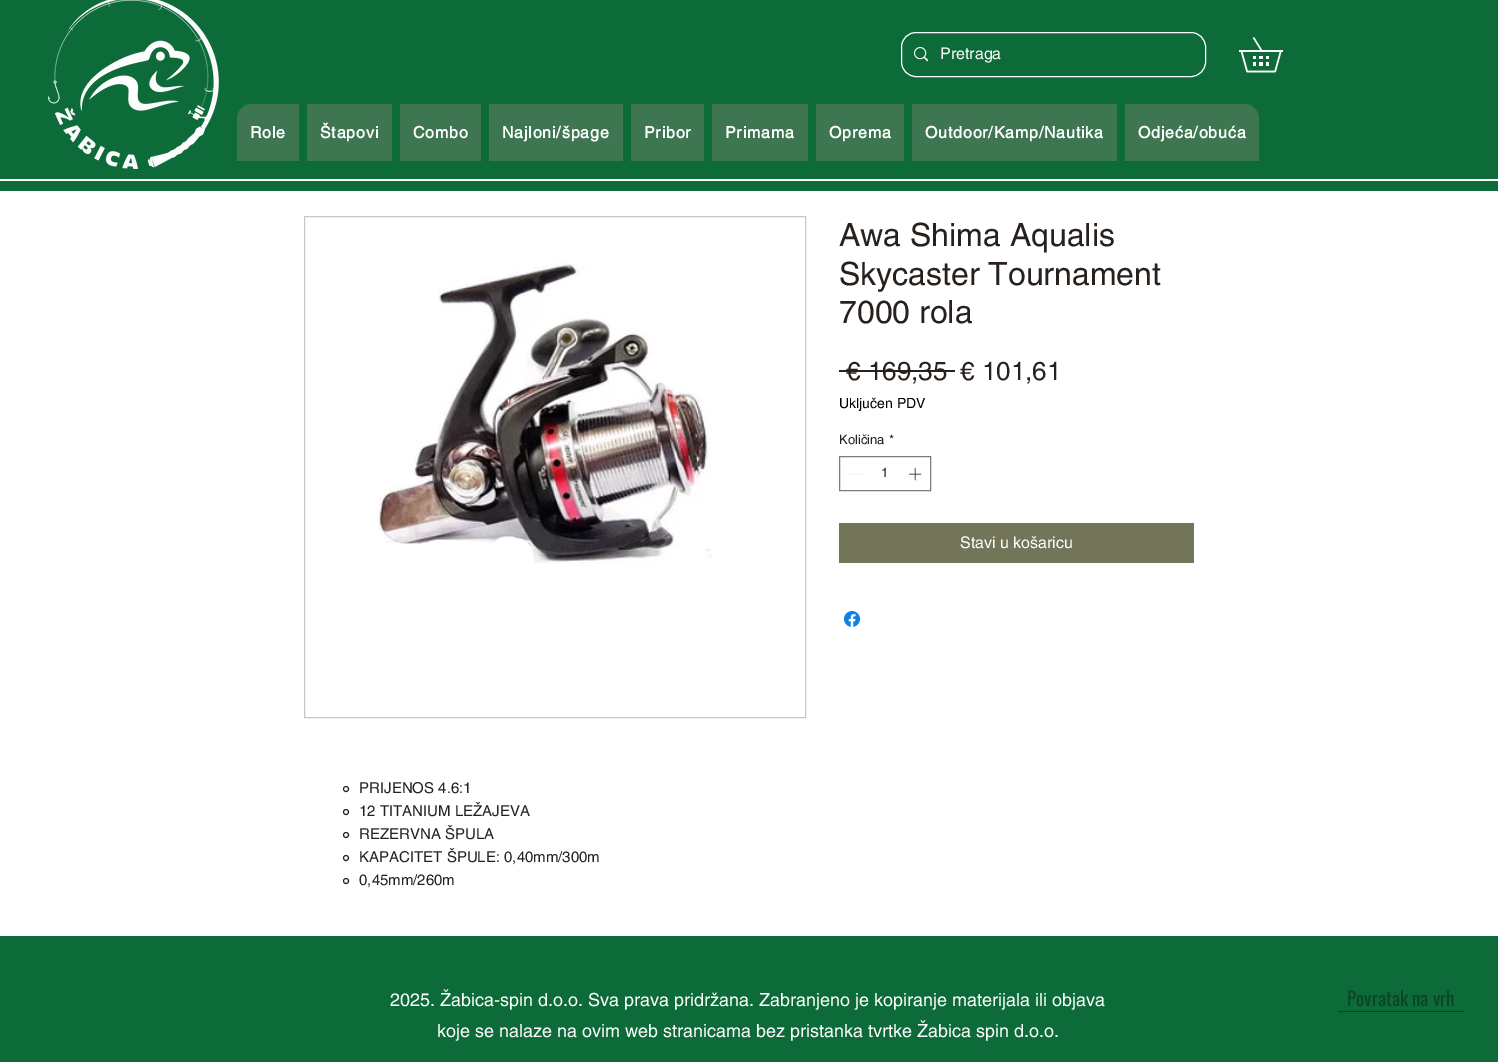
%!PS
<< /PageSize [1498 1062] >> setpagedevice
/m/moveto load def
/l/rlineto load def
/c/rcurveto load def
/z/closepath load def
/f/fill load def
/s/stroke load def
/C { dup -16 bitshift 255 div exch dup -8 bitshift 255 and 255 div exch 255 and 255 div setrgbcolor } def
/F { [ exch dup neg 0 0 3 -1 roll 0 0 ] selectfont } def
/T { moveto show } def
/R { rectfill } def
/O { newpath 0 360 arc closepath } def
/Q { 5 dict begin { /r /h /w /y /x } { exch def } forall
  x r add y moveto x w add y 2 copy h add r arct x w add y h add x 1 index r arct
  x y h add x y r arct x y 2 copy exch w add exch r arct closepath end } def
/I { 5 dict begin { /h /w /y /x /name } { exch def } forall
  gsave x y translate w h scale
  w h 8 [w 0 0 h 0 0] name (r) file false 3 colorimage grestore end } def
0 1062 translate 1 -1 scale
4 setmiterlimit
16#FFFFFF C
0 0 1498 1062 R
16#0C6B39 C
0 0 1498 191 R
(1.rgb) 48 0 171 169 I
16#FFFFFF C
901.5 32.5 304 44 14.5 Q s
(2.rgb) 914 47 14 15 I
/helvetica-Regular 16 F
(Pretraga) 940 59 T
(3.rgb) 1239 37 44 36 I
16#3F7652 C
252 104 m 47 0 l 0 57 l -62 0 l 0 -42 l 0 -8.5 6.5 -15 15 -15 c z f
252 104 m -5 1 l 51 0 l 0 55 l -60 0 l 0 -46 l -1 5 l 0 42 l 62 0 l 0 -57 l z f
/helvetica-Bold 16 F
16#FFFFFF C
250 138 m .8 0 (Role) ashow
16#3F7652 C
307 104 85 57 R
16#FFFFFF C
320 138 m .8 0 (Štapovi) ashow
16#3F7652 C
400 104 81 57 R
16#FFFFFF C
413 138 m .8 0 (Combo) ashow
16#3F7652 C
489 104 134 57 R
16#FFFFFF C
502 138 m .8 0 (Najloni/špage) ashow
16#3F7652 C
631 104 73 57 R
16#FFFFFF C
644 138 m .8 0 (Pribor) ashow
16#3F7652 C
712 104 96 57 R
16#FFFFFF C
725 138 m .8 0 (Primama) ashow
16#3F7652 C
816 104 88 57 R
16#FFFFFF C
829 138 m .8 0 (Oprema) ashow
16#3F7652 C
912 104 205 57 R
16#FFFFFF C
925 138 m .8 0 (Outdoor/Kamp/Nautika) ashow
16#3F7652 C
1125 104 m 119 0 l 8.5 0 15 6.5 15 15 c 0 42 l -134 0 l z f
1125 104 m 0 57 l 134 0 l 0 -42 l -1 -5 l 0 46 l -132 0 l 0 -55 l 123 0 l -5 -1 l z f
16#FFFFFF C
1138 138 m .8 0 (Odjeća/obuća) ashow
0 179 1498 2 R
/helvetica-Regular 32 F
16#27211E C
(Awa Shima Aqualis) 839 246 T
(Skycaster Tournament) 839 285 T
(7000 rola) 839 323 T
/helvetica-Regular 26 F
(€ 169,35) 846 380 T
839 370 116 2 R
(€ 101,61) 960 380 T
/helvetica-Regular 14 F
16#000000 C
(Uključen PDV) 839 408 T
/helvetica-Regular 13 F
16#27211E C
(Količina) 839 444 T
(*) 889 444 T
16#7D7A78 C
839.5 456.5 91 34 rectstroke
16#E3E3E3 C
862 474 m 0 .5 l -12 0 l 0 -.5 l z eofill
16#27211E C
(1) 881 477 T
(4.rgb) 909 468 13 13 I
16#727557 C
839 523 355 40 R
/helvetica-Regular 16 F
16#FFFFFF C
(Stavi u košaricu) 960 548 T
(5.rgb) 844 611 16 16 I
16#CFC5C1 C
304.5 216.5 501 501 rectstroke
(6.rgb) 377 262 335 302 I
16#27211E C
346 789 2.5 O s
/helvetica-Regular 15 F
(PRIJENOS 4.6:1) 359 793 T
346 812 2.5 O s
(12 TITANIUM LEŽAJEVA) 359 816 T
346 835 2.5 O s
(REZERVNA ŠPULA) 359 839 T
346 858 2.5 O s
(KAPACITET ŠPULE: 0,40mm/300m) 359 862 T
346 881 2.5 O s
(0,45mm/260m) 359 885 T
16#0C6B39 C
0 936 1498 126 R
/helvetica-Regular 18 F
16#FFFFFF C
(2025. Žabica-spin d.o.o. Sva prava pridržana. Zabranjeno je kopiranje materijala ili objava) 390 1006 T
(koje se nalaze na ovim web stranicama bez pristanka tvrtke Žabica spin d.o.o.) 437 1037 T
16#0C4426 C
1338 1011 126 1 R
/Oswald-Regular 19 F
(Povratak na vrh) 1347 1006 T
showpage
